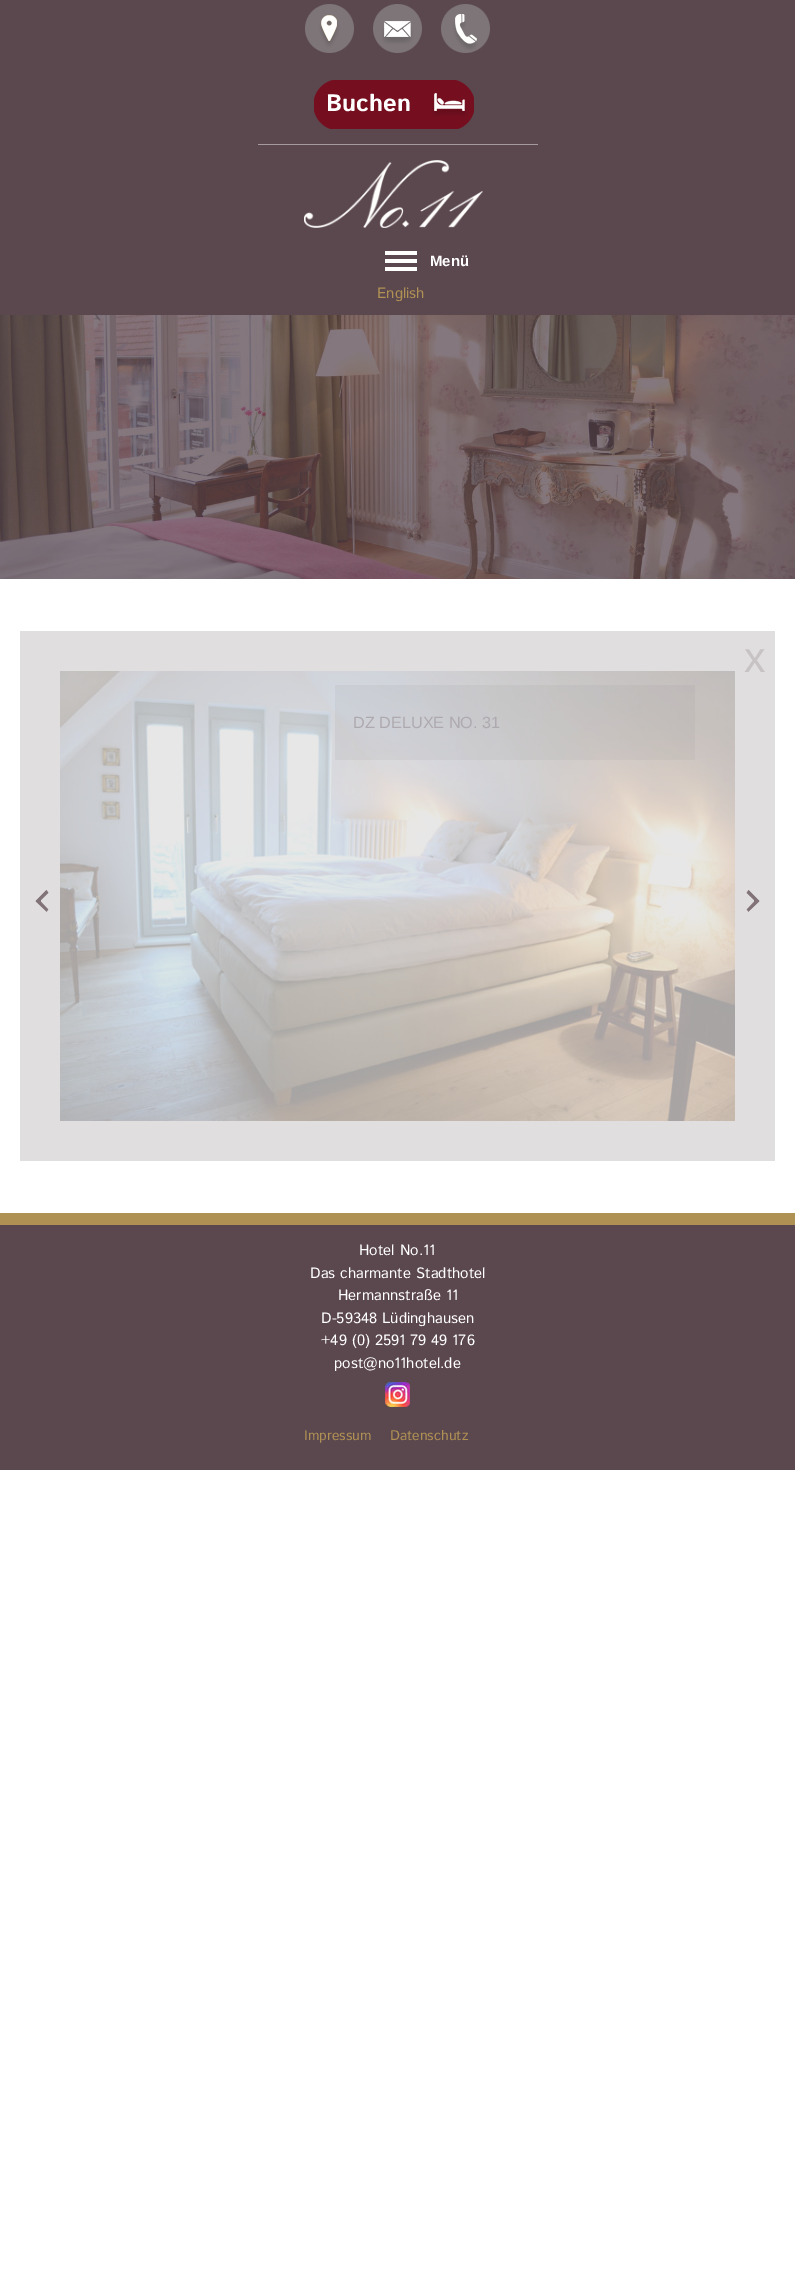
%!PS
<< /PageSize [795 2278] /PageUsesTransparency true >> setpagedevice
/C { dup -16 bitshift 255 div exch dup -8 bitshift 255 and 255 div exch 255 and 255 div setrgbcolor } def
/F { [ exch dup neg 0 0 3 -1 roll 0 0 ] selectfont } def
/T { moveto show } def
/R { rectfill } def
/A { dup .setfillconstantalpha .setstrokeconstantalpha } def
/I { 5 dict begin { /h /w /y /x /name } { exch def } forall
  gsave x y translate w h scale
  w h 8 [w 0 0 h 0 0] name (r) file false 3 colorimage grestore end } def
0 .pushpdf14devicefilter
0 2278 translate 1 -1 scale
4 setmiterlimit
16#FFFFFF C
0 0 795 2278 R
16#5B474E C
0 0 795 579 R
16#A59A9D C
258 144 280 1 R
(1.rgb) 305 4 49 49 I
(2.rgb) 373 4 49 49 I
(3.rgb) 441 4 49 49 I
(4.rgb) 314 80 160 49 I
/IstokWeb-Bold 24 F
16#FFFFFF C
(Buchen) 326 111 T
(5.rgb) 304 160 179 68 I
(6.rgb) 385 251 32 20 I
/LiberationSans-Bold 15 F
(Menü) 430 266 T
/IstokWeb-Regular 15 F
16#B09154 C
(English) 377 298 T
(7.rgb) 0 315 795 264 I
16#E0DEDF C
20 631 755 530 R
(8.rgb) 60 671 675 450 I
/LiberationSans-Regular 43 F
16#C7C2C4 C
(x) 744 672 T
0.13 A
16#959595 C
335 685 360 75 R
/LiberationSans-Regular 16.25 F
1 A
16#AEA9AF C
(DZ DELUXE NO. 31) 353 728 T
(9.rgb) 35 890 14 22 I
(10.rgb) 746 890 14 22 I
16#5B474E C
0 1225 795 245 R
16#B09154 C
0 1213 795 12 R
/IstokWeb-Regular 15 F
16#FFFFFF C
(Hotel No.11) 359 1255 T
(Das charmante Stadthotel) 310 1278 T
(Hermannstraße 11) 338 1300 T
(D-59348 Lüdinghausen) 321 1323 T
(+49 \(0\) 2591 79 49 176) 321 1345 T
(post@no11hotel.de) 334 1368 T
(11.rgb) 385 1381 25 26 I
/IstokWeb-Regular 14 F
16#B09154 C
(Impressum) 304 1440 T
(Datenschutz) 390 1440 T
.poppdf14devicefilter showpage
